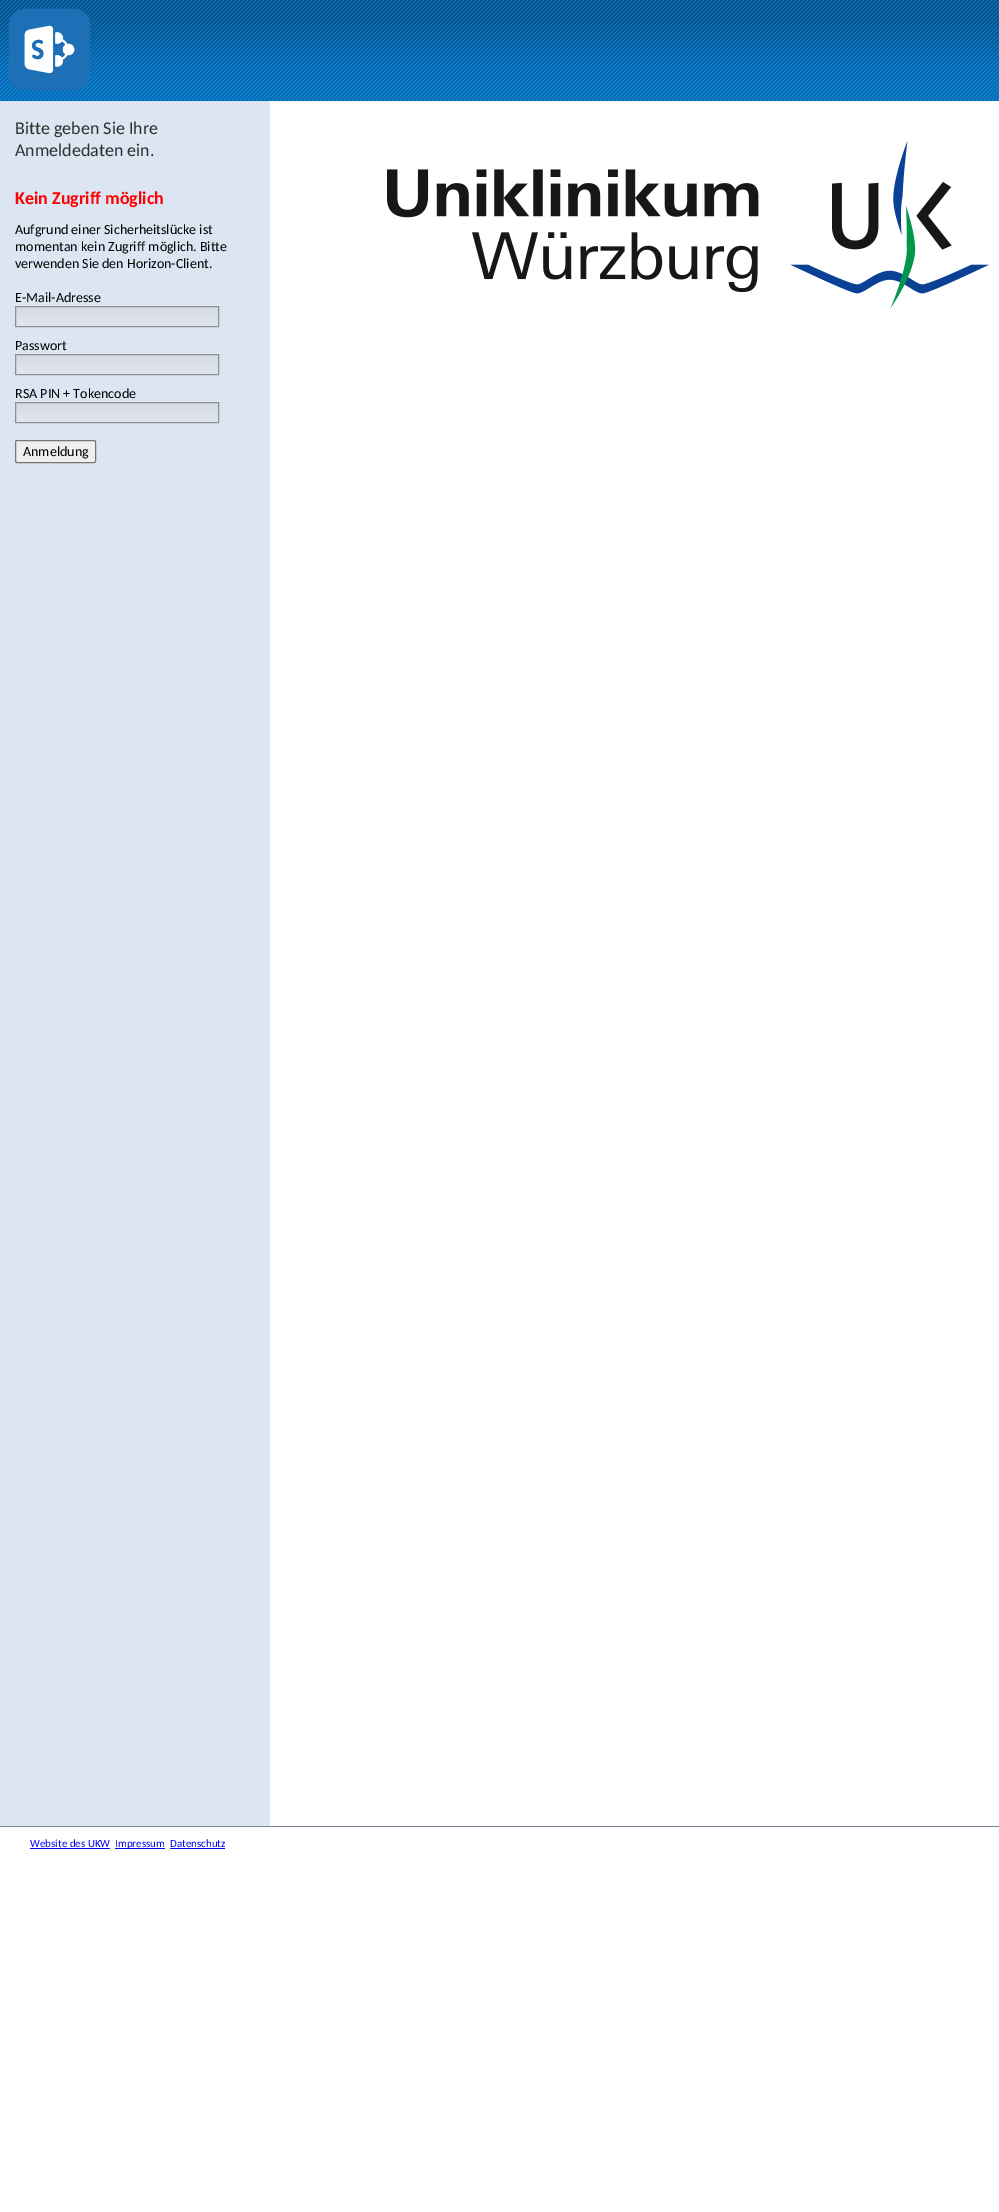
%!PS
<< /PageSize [999 2212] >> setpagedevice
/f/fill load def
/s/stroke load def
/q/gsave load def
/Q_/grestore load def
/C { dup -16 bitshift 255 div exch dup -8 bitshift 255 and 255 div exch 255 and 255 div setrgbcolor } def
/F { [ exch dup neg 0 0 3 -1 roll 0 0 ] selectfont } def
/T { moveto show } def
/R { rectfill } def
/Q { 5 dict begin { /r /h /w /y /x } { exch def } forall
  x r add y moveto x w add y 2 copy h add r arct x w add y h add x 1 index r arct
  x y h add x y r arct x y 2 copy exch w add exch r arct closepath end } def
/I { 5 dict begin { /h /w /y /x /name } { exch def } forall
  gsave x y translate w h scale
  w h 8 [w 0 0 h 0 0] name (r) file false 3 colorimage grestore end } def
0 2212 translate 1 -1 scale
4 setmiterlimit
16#FFFFFF C
0 0 999 2212 R
16#0070C0 C
0 0 999 101 R
(1.rgb) 0 0 999 100 I
(2.rgb) 8 8 83 83 I
16#DCE6F2 C
0 101 270 1725 R
/Carlito-Regular 18 F
16#303030 C
(Bitte geben Sie Ihre) 15 134 T
(Anmeldedaten ein.) 15 156 T
/Carlito-Bold 18 F
16#FF0000 C
(Kein Zugriff möglich) 15 204 T
/Carlito-Regular 14 F
16#000000 C
(Aufgrund einer Sicherheitslücke ist) 15 234 T
(momentan kein Zugriff möglich. Bitte) 15 251 T
(verwenden Sie den Horizon-Client.) 15 268 T
(E-Mail-Adresse) 15 302 T
16#E2E9F1 C
16 307 202 19 R
(3.rgb) 16 307 202 19 I
16#909090 C
15.5 306.5 203 20 rectstroke
16#000000 C
(Passwort) 15 350 T
16#E2E9F1 C
16 355 202 19 R
(3.rgb) 16 355 202 19 I
16#909090 C
15.5 354.5 203 20 rectstroke
16#000000 C
(RSA PIN + Tokencode) 15 398 T
16#E2E9F1 C
16 403 202 19 R
(3.rgb) 16 403 202 19 I
16#909090 C
15.5 402.5 203 20 rectstroke
16#EFEFEF C
15.5 440.5 80 22 1.5 Q q f Q_
16#767676 C
s
16#000000 C
(Anmeldung) 23 456 T
(4.rgb) 387 141 602 167 I
16#738495 C
0 1826 999 1 R
/Carlito-Regular 11 F
16#0000EE C
(Website des UKW) 30 1847 T
30 1848 80 1 R
115 1848 50 1 R
(Impressum) 115 1847 T
(Datenschutz) 170 1847 T
170 1848 55 1 R
showpage
